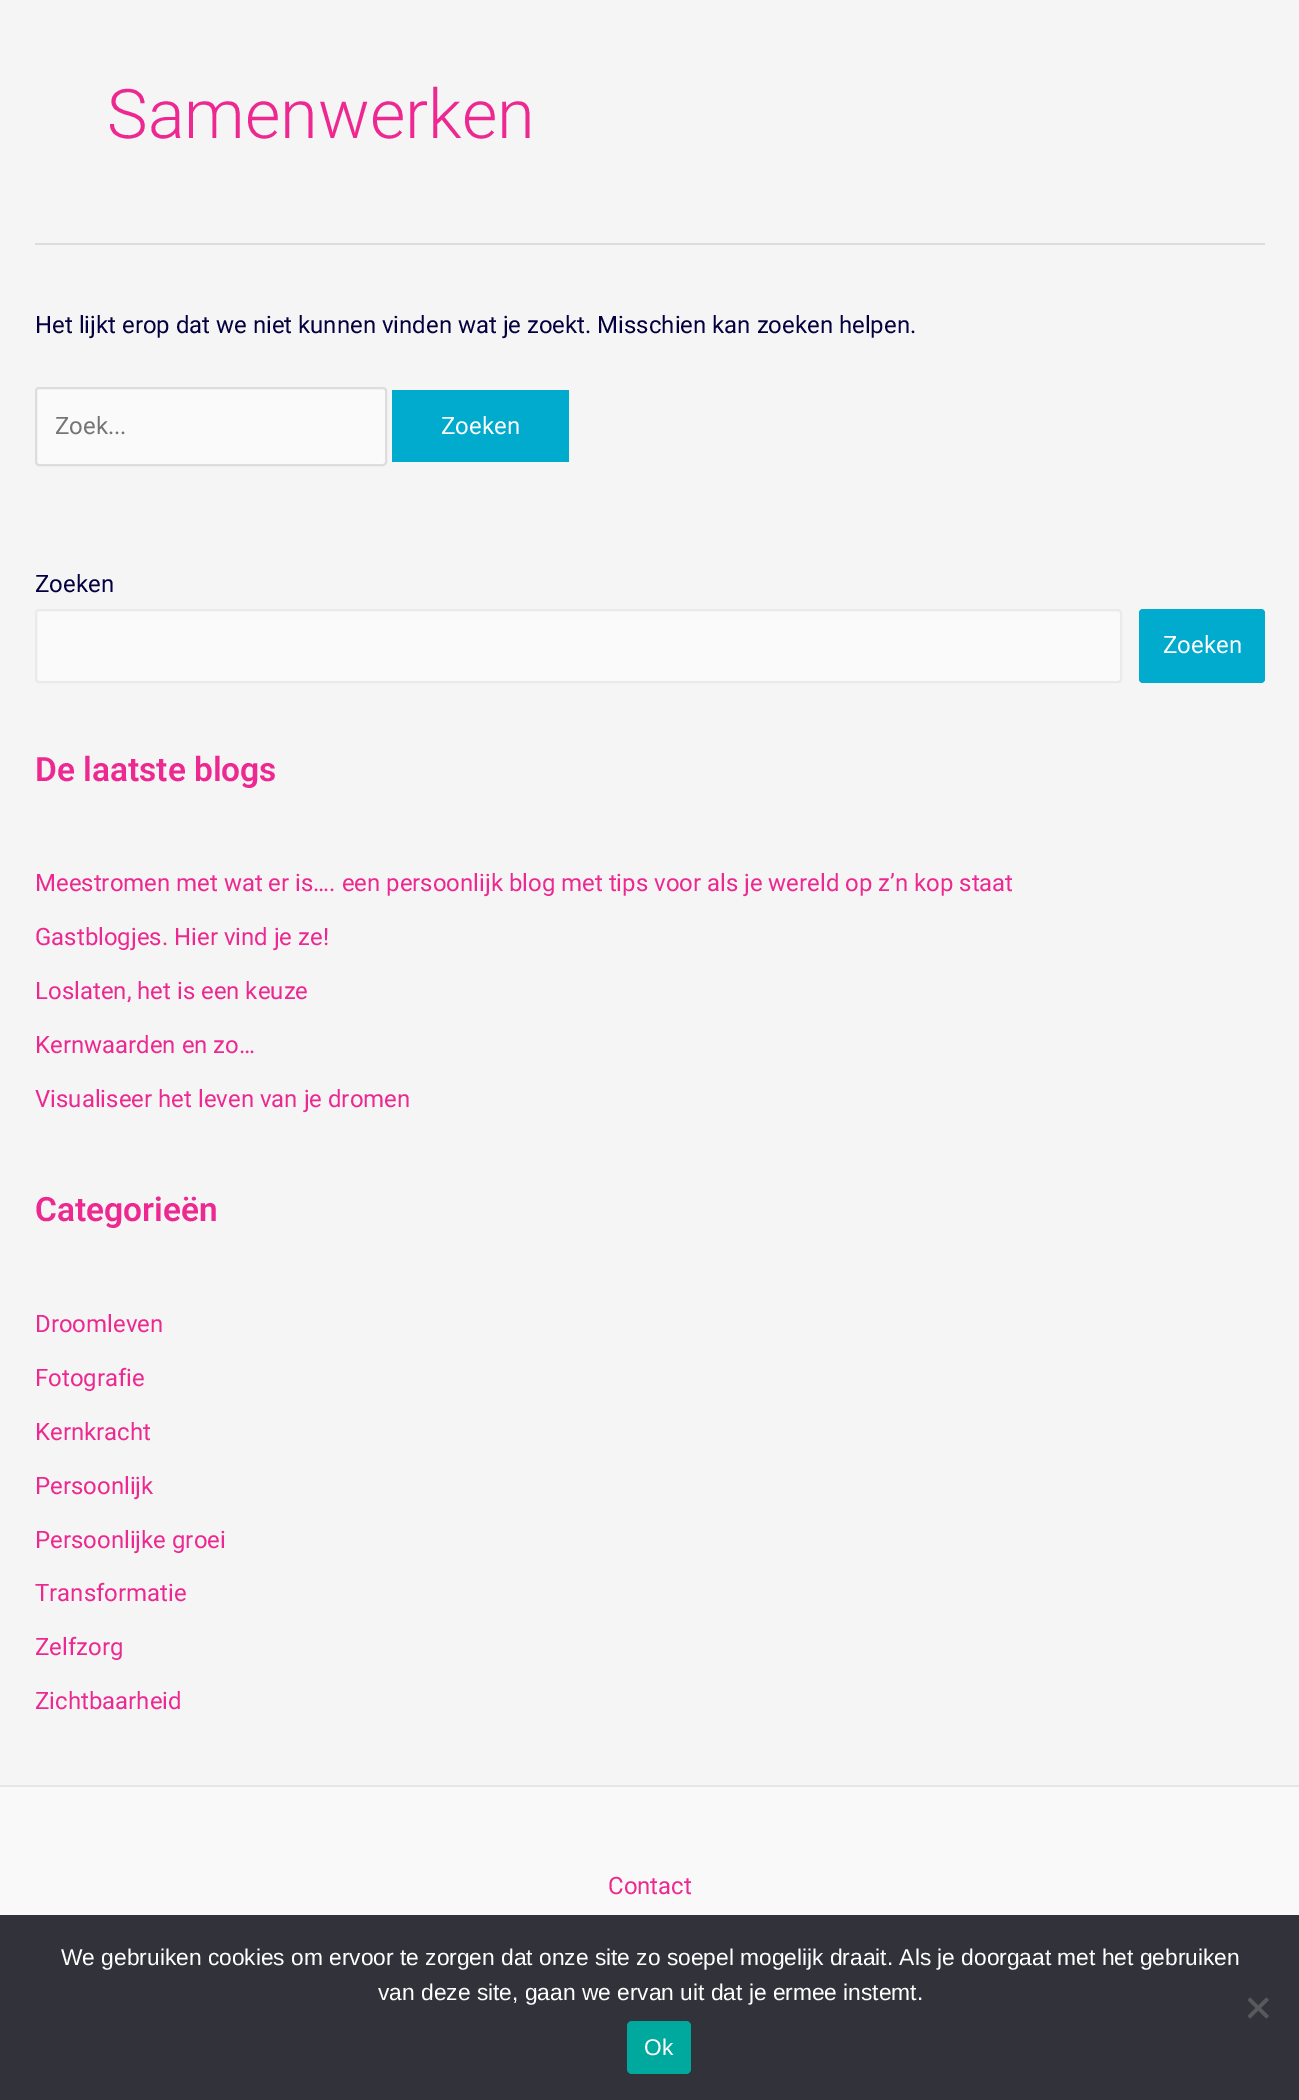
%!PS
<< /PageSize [1299 2100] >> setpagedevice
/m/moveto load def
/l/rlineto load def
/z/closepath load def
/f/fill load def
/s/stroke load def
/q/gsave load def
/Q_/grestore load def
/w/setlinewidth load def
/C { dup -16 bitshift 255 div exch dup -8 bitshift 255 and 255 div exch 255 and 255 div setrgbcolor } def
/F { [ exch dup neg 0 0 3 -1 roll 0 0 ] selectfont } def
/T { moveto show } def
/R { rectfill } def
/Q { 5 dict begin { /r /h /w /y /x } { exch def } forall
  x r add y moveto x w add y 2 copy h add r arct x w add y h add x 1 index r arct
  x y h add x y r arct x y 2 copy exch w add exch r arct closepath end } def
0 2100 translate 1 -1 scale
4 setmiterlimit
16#F5F5F5 C
0 0 1299 2100 R
16#DDDDDD C
35 243 1230 2 R
/Roboto-Light 68.5 F
16#ED2891 C
(Samenwerken) 107 138 T
/Roboto-Regular 23.95 F
16#04003F C
(Het lijkt erop dat we niet kunnen vinden wat je zoekt. Misschien kan zoeken helpen.) 35 333 T
16#FAFAFA C
36 388 350 77 3 Q q f Q_
16#DDDDDD C
2 w
s
16#757575 C
(Zoek...) 55 434 T
16#00ABCD C
392 390 177 72 R
16#FFFFFF C
(Zoeken) 441 434 T
16#04003F C
(Zoeken) 35 592 T
16#FAFAFA C
36 610 1085 72 3 Q q f Q_
16#EAEAEA C
s
16#00ABCD C
1139 609 126 74 4 Q f
16#FFFFFF C
(Zoeken) 1163 653 T
/Roboto-SemiBold 33.5 F
16#ED2891 C
(De laatste blogs) 35 781 T
/Roboto-Regular 23.95 F
(Meestromen met wat er is…. een persoonlijk blog met tips voor als je wereld op z’n kop staat) 35 891 T
(Gastblogjes. Hier vind je ze!) 35 945 T
(Loslaten, het is een keuze) 35 999 T
(Kernwaarden en zo…) 35 1053 T
(Visualiseer het leven van je dromen) 35 1107 T
/Roboto-SemiBold 33.5 F
(Categorieën) 35 1221 T
/Roboto-Regular 23.95 F
(Droomleven) 35 1332 T
(Fotografie) 35 1386 T
(Kernkracht) 35 1440 T
(Persoonlijk) 35 1494 T
(Persoonlijke groei) 35 1548 T
(Transformatie) 35 1601 T
(Zelfzorg) 35 1655 T
(Zichtbaarheid) 35 1709 T
16#F9F9F9 C
0 1787 1299 128 R
16#E5E5E5 C
0 1785 1299 2 R
16#ED2891 C
(Contact) 608 1894 T
16#32323A C
0 1915 1299 185 R
/LiberationSans-Regular 22.75 F
16#FFFFFF C
(We gebruiken cookies om ervoor te zorgen dat onze site zo soepel mogelijk draait. Als je doorgaat met het gebruiken) 61 1965 T
(van deze site, gaan we ervan uit dat je ermee instemt.) 378 2000 T
16#59595D C
1266.5 1997.5 m 2.5 2.5 l -19 18.5 l -2.5 -2.5 l z f
1247.5 2000 m 2.5 -2.5 l 19 18.5 l -2.5 2.5 l z f
16#00A99D C
627 2021 64 53 5 Q f
16#FFFFFF C
(Ok) 644 2055 T
showpage
